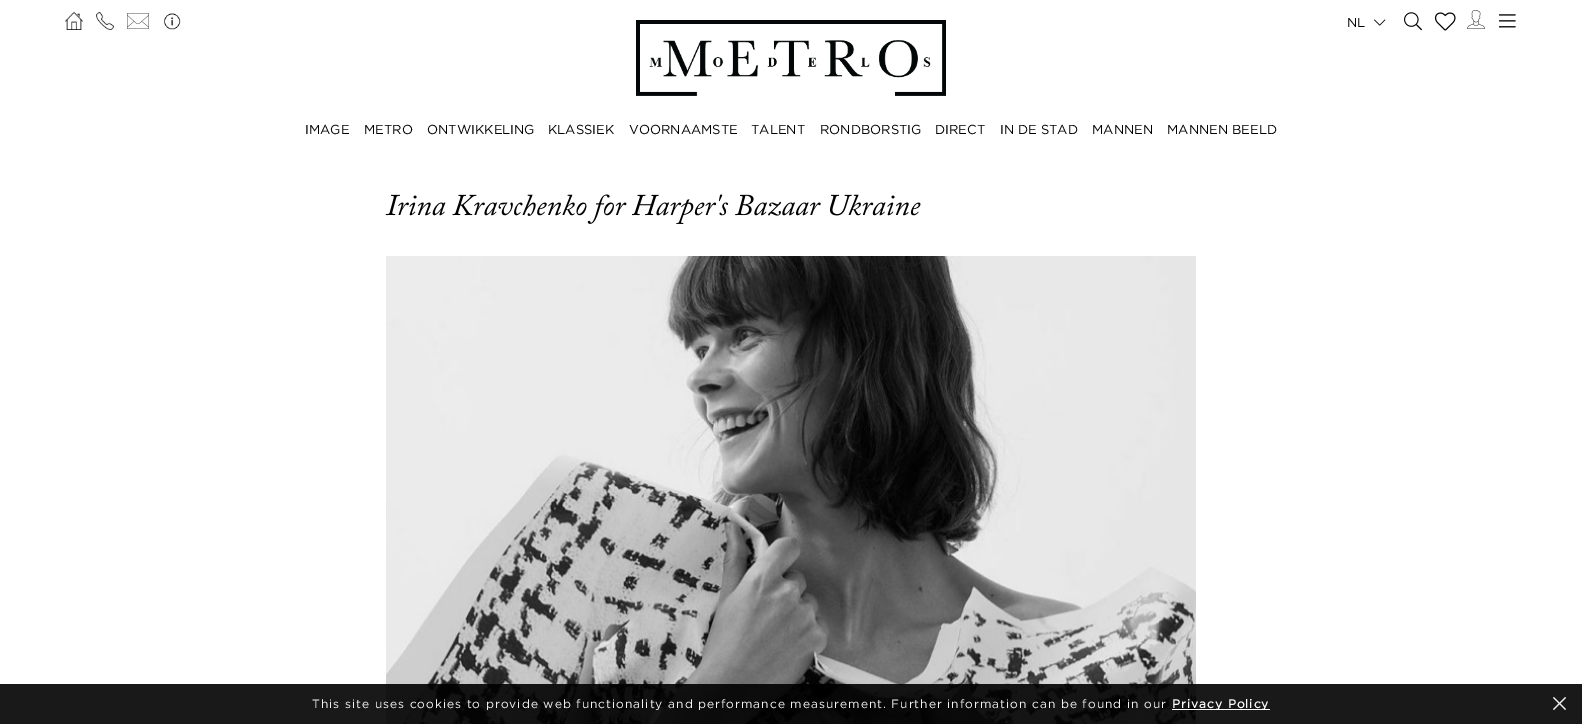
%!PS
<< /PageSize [1582 724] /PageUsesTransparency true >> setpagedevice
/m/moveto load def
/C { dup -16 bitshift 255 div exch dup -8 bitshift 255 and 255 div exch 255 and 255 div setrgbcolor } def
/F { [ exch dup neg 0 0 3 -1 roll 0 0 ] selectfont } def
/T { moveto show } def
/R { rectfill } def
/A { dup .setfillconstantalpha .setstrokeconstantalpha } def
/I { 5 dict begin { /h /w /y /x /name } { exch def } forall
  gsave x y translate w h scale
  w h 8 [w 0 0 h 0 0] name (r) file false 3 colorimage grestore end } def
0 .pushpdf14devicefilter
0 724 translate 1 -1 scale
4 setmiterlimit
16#FFFFFF C
0 0 1582 724 R
(1.rgb) 65 12 18 18 I
(2.rgb) 96 12 18 18 I
(3.rgb) 127 13 22 16 I
(4.rgb) 163 13 18 17 I
(5.rgb) 636 20 310 76 I
/Gotham-Regular 13 F
16#000000 C
(NL) 1347 27 T
(6.rgb) 1374 19 12 7 I
(7.rgb) 1404 12 18 19 I
(8.rgb) 1434 12 22 19 I
(9.rgb) 1467 10 18 19 I
(10.rgb) 1499 14 17 14 I
(IMAGE) 305 134 T
(METRO) 364 134 T
(ONTWIKKELING) 427 134 T
(KLASSIEK) 548 134 T
(VOORNAAMSTE) 629 134 T
(TALENT) 751 134 T
(RONDBORSTIG) 820 134 T
(DIRECT) 935 134 T
(IN DE STAD) 1000 134 T
(MANNEN) 1092 134 T
(MANNEN BEELD) 1167 134 T
(11.rgb) 385 194 202 22 I
(12.rgb) 587 194 334 30 I
(13.rgb) 386 256 810 468 I
0.9 A
0 684 1582 40 R
/Gotham-Regular 12 F
1 A
16#F2F2F2 C
312 708 m 1 0 (This site uses cookies to provide web functionality and performance measurement. Further information can be found in our) ashow
16#FFFFFF C
1172 709 98 1 R
/Gotham-Bold 12 F
1172 708 m 1 0 (Privacy Policy) ashow
(14.rgb) 1553 697 13 13 I
.poppdf14devicefilter showpage
